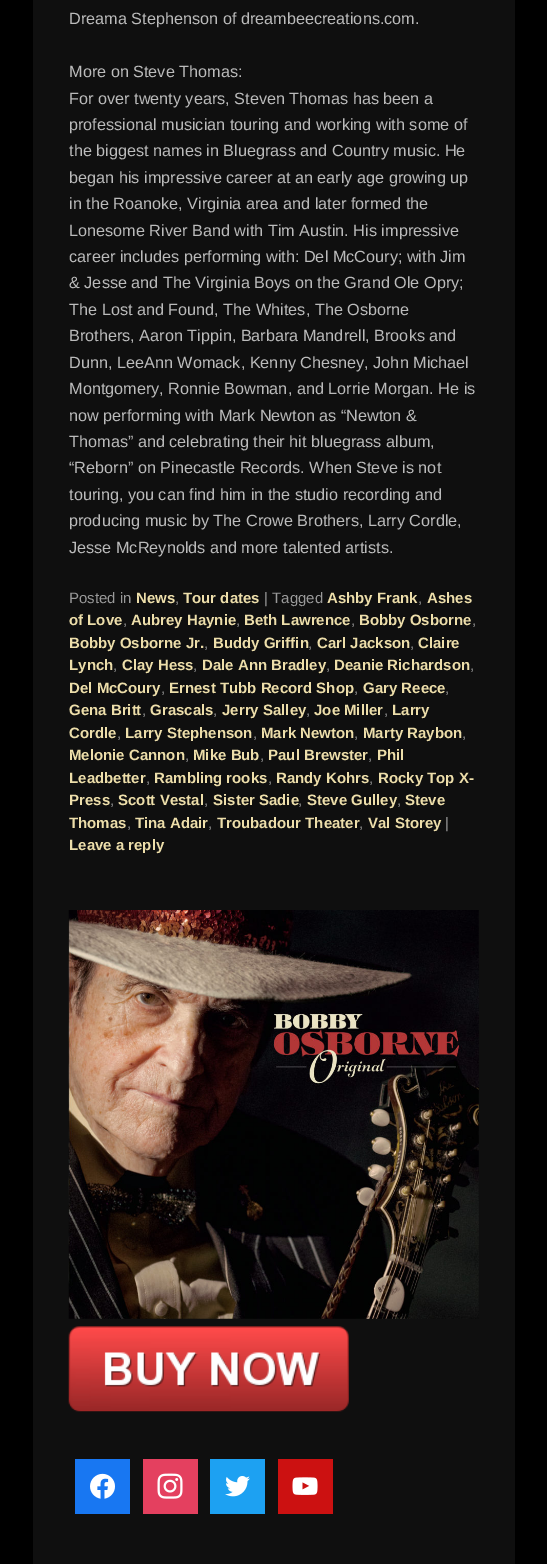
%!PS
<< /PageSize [547 1564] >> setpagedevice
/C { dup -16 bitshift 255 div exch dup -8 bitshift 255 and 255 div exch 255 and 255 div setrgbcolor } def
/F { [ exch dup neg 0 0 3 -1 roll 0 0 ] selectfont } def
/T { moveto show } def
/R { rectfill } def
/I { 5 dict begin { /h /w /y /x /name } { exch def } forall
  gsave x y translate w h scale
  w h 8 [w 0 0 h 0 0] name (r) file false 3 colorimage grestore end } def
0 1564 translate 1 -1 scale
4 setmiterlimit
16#000000 C
0 0 547 1564 R
16#0F0F0F C
33 0 482 1564 R
/LiberationSans-Regular 16.25 F
16#BBBBBB C
(Dreama Stephenson of dreambeecreations.com.) 69 24 T
(More on Steve Thomas:) 69 77 T
(For over twenty years, Steven Thomas has been a) 69 104 T
(professional musician touring and working with some of) 69 130 T
(the biggest names in Bluegrass and Country music. He) 69 156 T
(began his impressive career at an early age growing up) 69 183 T
(in the Roanoke, Virginia area and later formed the) 69 209 T
(Lonesome River Band with Tim Austin. His impressive) 69 236 T
(career includes performing with: Del McCoury; with Jim) 69 262 T
(& Jesse and The Virginia Boys on the Grand Ole Opry;) 69 288 T
(The Lost and Found, The Whites, The Osborne) 69 315 T
(Brothers, Aaron Tippin, Barbara Mandrell, Brooks and) 69 341 T
(Dunn, LeeAnn Womack, Kenny Chesney, John Michael) 69 368 T
(Montgomery, Ronnie Bowman, and Lorrie Morgan. He is) 69 394 T
(now performing with Mark Newton as “Newton &) 69 421 T
(Thomas” and celebrating their hit bluegrass album,) 69 447 T
(“Reborn” on Pinecastle Records. When Steve is not) 69 473 T
(touring, you can find him in the studio recording and) 69 500 T
(producing music by The Crowe Brothers, Larry Cordle,) 69 526 T
(Jesse McReynolds and more talented artists.) 69 553 T
/LiberationSans-Regular 15 F
16#999999 C
(Posted in) 69 603 T
/LiberationSans-Bold 15 F
16#EDDEAA C
(News) 136 603 T
/LiberationSans-Regular 15 F
16#999999 C
(,) 175 603 T
/LiberationSans-Bold 15 F
16#EDDEAA C
(Tour dates) 183 603 T
/LiberationSans-Regular 15 F
16#999999 C
(| Tagged) 264 603 T
/LiberationSans-Bold 15 F
16#EDDEAA C
(Ashby Frank) 327 603 T
/LiberationSans-Regular 15 F
16#999999 C
(,) 418 603 T
/LiberationSans-Bold 15 F
16#EDDEAA C
(Ashes) 427 603 T
(of Love) 69 625 T
/LiberationSans-Regular 15 F
16#999999 C
(,) 123 625 T
/LiberationSans-Bold 15 F
16#EDDEAA C
(Aubrey Haynie) 131 625 T
/LiberationSans-Regular 15 F
16#999999 C
(,) 236 625 T
/LiberationSans-Bold 15 F
16#EDDEAA C
(Beth Lawrence) 244 625 T
/LiberationSans-Regular 15 F
16#999999 C
(,) 351 625 T
/LiberationSans-Bold 15 F
16#EDDEAA C
(Bobby Osborne) 359 625 T
/LiberationSans-Regular 15 F
16#999999 C
(,) 472 625 T
/LiberationSans-Bold 15 F
16#EDDEAA C
(Bobby Osborne Jr.) 69 648 T
/LiberationSans-Regular 15 F
16#999999 C
(,) 204 648 T
/LiberationSans-Bold 15 F
16#EDDEAA C
(Buddy Griffin) 213 648 T
/LiberationSans-Regular 15 F
16#999999 C
(,) 308 648 T
/LiberationSans-Bold 15 F
16#EDDEAA C
(Carl Jackson) 317 648 T
/LiberationSans-Regular 15 F
16#999999 C
(,) 410 648 T
/LiberationSans-Bold 15 F
16#EDDEAA C
(Claire) 418 648 T
(Lynch) 69 670 T
/LiberationSans-Regular 15 F
16#999999 C
(,) 113 670 T
/LiberationSans-Bold 15 F
16#EDDEAA C
(Clay Hess) 122 670 T
/LiberationSans-Regular 15 F
16#999999 C
(,) 193 670 T
/LiberationSans-Bold 15 F
16#EDDEAA C
(Dale Ann Bradley) 202 670 T
/LiberationSans-Regular 15 F
16#999999 C
(,) 326 670 T
/LiberationSans-Bold 15 F
16#EDDEAA C
(Deanie Richardson) 334 670 T
/LiberationSans-Regular 15 F
16#999999 C
(,) 470 670 T
/LiberationSans-Bold 15 F
16#EDDEAA C
(Del McCoury) 69 693 T
/LiberationSans-Regular 15 F
16#999999 C
(,) 161 693 T
/LiberationSans-Bold 15 F
16#EDDEAA C
(Ernest Tubb Record Shop) 169 693 T
/LiberationSans-Regular 15 F
16#999999 C
(,) 354 693 T
/LiberationSans-Bold 15 F
16#EDDEAA C
(Gary Reece) 363 693 T
/LiberationSans-Regular 15 F
16#999999 C
(,) 445 693 T
/LiberationSans-Bold 15 F
16#EDDEAA C
(Gena Britt) 69 715 T
/LiberationSans-Regular 15 F
16#999999 C
(,) 142 715 T
/LiberationSans-Bold 15 F
16#EDDEAA C
(Grascals) 150 715 T
/LiberationSans-Regular 15 F
16#999999 C
(,) 213 715 T
/LiberationSans-Bold 15 F
16#EDDEAA C
(Jerry Salley) 222 715 T
/LiberationSans-Regular 15 F
16#999999 C
(,) 306 715 T
/LiberationSans-Bold 15 F
16#EDDEAA C
(Joe Miller) 314 715 T
/LiberationSans-Regular 15 F
16#999999 C
(,) 384 715 T
/LiberationSans-Bold 15 F
16#EDDEAA C
(Larry) 392 715 T
(Cordle) 69 738 T
/LiberationSans-Regular 15 F
16#999999 C
(,) 117 738 T
/LiberationSans-Bold 15 F
16#EDDEAA C
(Larry Stephenson) 125 738 T
/LiberationSans-Regular 15 F
16#999999 C
(,) 253 738 T
/LiberationSans-Bold 15 F
16#EDDEAA C
(Mark Newton) 261 738 T
/LiberationSans-Regular 15 F
16#999999 C
(,) 354 738 T
/LiberationSans-Bold 15 F
16#EDDEAA C
(Marty Raybon) 363 738 T
/LiberationSans-Regular 15 F
16#999999 C
(,) 462 738 T
/LiberationSans-Bold 15 F
16#EDDEAA C
(Melonie Cannon) 69 760 T
/LiberationSans-Regular 15 F
16#999999 C
(,) 185 760 T
/LiberationSans-Bold 15 F
16#EDDEAA C
(Mike Bub) 193 760 T
/LiberationSans-Regular 15 F
16#999999 C
(,) 260 760 T
/LiberationSans-Bold 15 F
16#EDDEAA C
(Paul Brewster) 268 760 T
/LiberationSans-Regular 15 F
16#999999 C
(,) 368 760 T
/LiberationSans-Bold 15 F
16#EDDEAA C
(Phil) 377 760 T
(Leadbetter) 69 783 T
/LiberationSans-Regular 15 F
16#999999 C
(,) 146 783 T
/LiberationSans-Bold 15 F
16#EDDEAA C
(Rambling rooks) 154 783 T
/LiberationSans-Regular 15 F
16#999999 C
(,) 268 783 T
/LiberationSans-Bold 15 F
16#EDDEAA C
(Randy Kohrs) 276 783 T
/LiberationSans-Regular 15 F
16#999999 C
(,) 369 783 T
/LiberationSans-Bold 15 F
16#EDDEAA C
(Rocky Top X-) 378 783 T
(Press) 69 805 T
/LiberationSans-Regular 15 F
16#999999 C
(,) 110 805 T
/LiberationSans-Bold 15 F
16#EDDEAA C
(Scott Vestal) 118 805 T
/LiberationSans-Regular 15 F
16#999999 C
(,) 204 805 T
/LiberationSans-Bold 15 F
16#EDDEAA C
(Sister Sadie) 213 805 T
/LiberationSans-Regular 15 F
16#999999 C
(,) 298 805 T
/LiberationSans-Bold 15 F
16#EDDEAA C
(Steve Gulley) 307 805 T
/LiberationSans-Regular 15 F
16#999999 C
(,) 397 805 T
/LiberationSans-Bold 15 F
16#EDDEAA C
(Steve) 405 805 T
(Thomas) 69 828 T
/LiberationSans-Regular 15 F
16#999999 C
(,) 127 828 T
/LiberationSans-Bold 15 F
16#EDDEAA C
(Tina Adair) 135 828 T
/LiberationSans-Regular 15 F
16#999999 C
(,) 208 828 T
/LiberationSans-Bold 15 F
16#EDDEAA C
(Troubadour Theater) 217 828 T
/LiberationSans-Regular 15 F
16#999999 C
(,) 359 828 T
/LiberationSans-Bold 15 F
16#EDDEAA C
(Val Storey) 368 828 T
/LiberationSans-Regular 15 F
16#999999 C
(|) 445 828 T
/LiberationSans-Bold 15 F
16#EDDEAA C
(Leave a reply) 69 850 T
(1.rgb) 68 910 411 409 I
(2.rgb) 68 1326 281 86 I
16#1877F2 C
75 1459 55 55 R
(3.rgb) 90 1473 25 26 I
16#E4405F C
143 1459 55 55 R
(4.rgb) 157 1473 26 26 I
16#1DA1F2 C
210 1459 55 55 R
(5.rgb) 225 1476 25 21 I
16#CC1111 C
278 1459 55 55 R
(6.rgb) 292 1477 26 18 I
showpage
